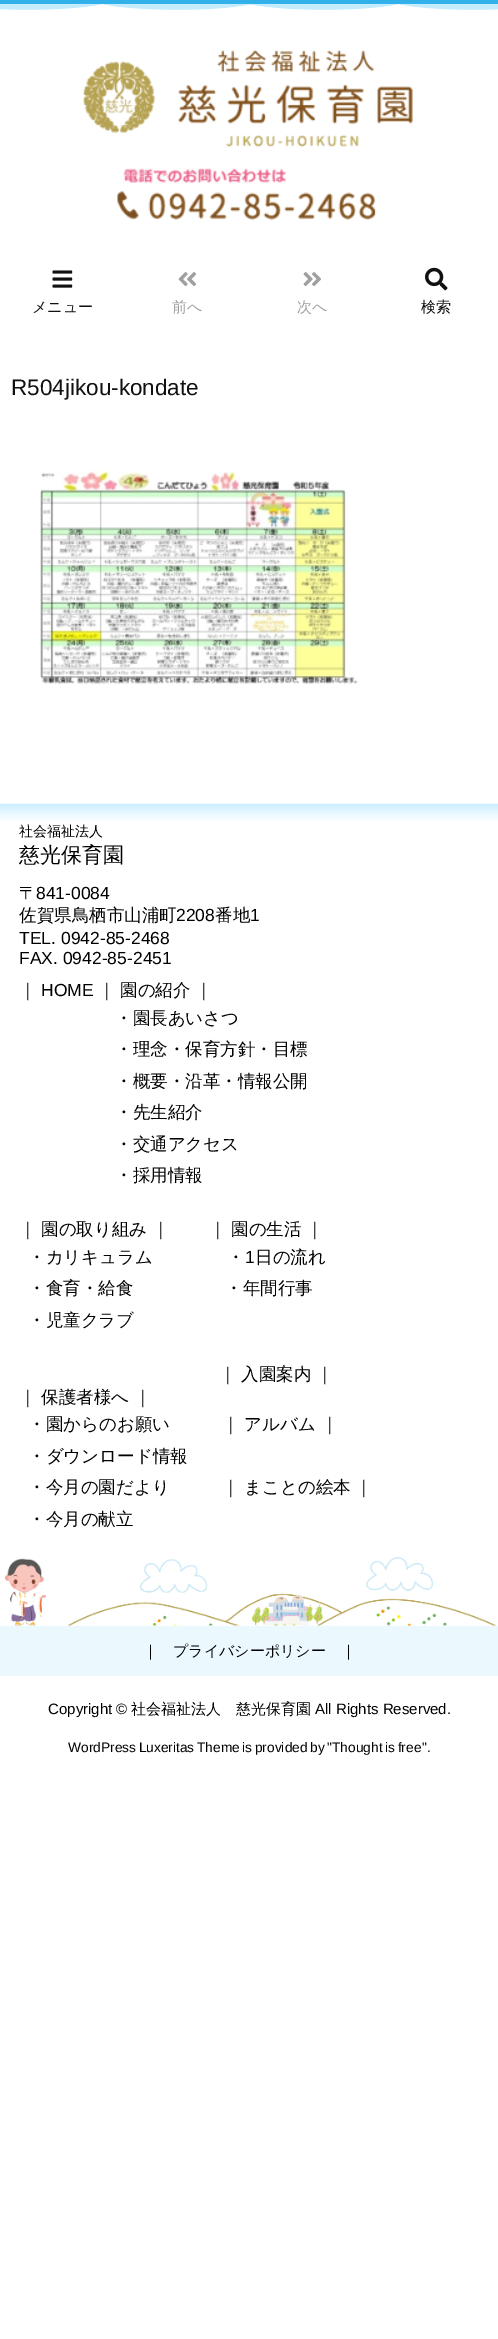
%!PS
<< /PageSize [498 2339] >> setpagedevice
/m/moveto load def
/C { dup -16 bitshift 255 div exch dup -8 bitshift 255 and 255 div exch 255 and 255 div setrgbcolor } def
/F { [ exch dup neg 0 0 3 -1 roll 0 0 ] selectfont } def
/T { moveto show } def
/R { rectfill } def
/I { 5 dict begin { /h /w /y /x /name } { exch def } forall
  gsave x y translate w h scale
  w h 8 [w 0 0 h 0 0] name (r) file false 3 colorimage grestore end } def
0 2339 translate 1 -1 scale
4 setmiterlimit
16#FFFFFF C
0 0 498 2339 R
(1.rgb) 0 0 498 10 I
(2.rgb) 83 50 330 97 I
(3.rgb) 117 168 259 53 I
(4.rgb) 52 270 21 18 I
/WenQuanYiZenHei-Medium 15 F
16#111111 C
(メニュー) 32 312 T
(5.rgb) 178 272 18 14 I
16#A0A0A0 C
(前へ) 172 312 T
(6.rgb) 303 272 18 14 I
(次へ) 297 312 T
(7.rgb) 425 267 23 24 I
16#111111 C
(検索) 421 312 T
/LiberationSans-Regular 22.5 F
(R504jikou-kondate) 11 395 T
(8.rgb) 40 470 318 214 I
(9.rgb) 0 803 498 18 I
/WenQuanYiZenHei-Medium 14 F
16#000000 C
(社会福祉法人) 19 836 T
/WenQuanYiZenHei-Medium 21 F
(慈光保育園) 19 862 T
/WenQuanYiZenHei-Medium 17.5 F
(〒) 19 899 T
/LiberationSans-Regular 17.5 F
(841-0084) 36 899 T
/WenQuanYiZenHei-Medium 17.5 F
(佐賀県鳥栖市山浦町) 19 921 T
/LiberationSans-Regular 17.5 F
(2208) 176 921 T
/WenQuanYiZenHei-Medium 17.5 F
(番地) 215 921 T
/LiberationSans-Regular 17.5 F
(1) 250 921 T
(TEL. 0942-85-2468) 19 944 T
(FAX. 0942-85-2451) 19 964 T
/WenQuanYiZenHei-Medium 17.5 F
(｜) 19 996 T
/LiberationSans-Regular 17.5 F
(HOME) 41 996 T
/WenQuanYiZenHei-Medium 17.5 F
(｜) 98 996 T
(園の紹介) 120 996 T
(｜) 195 996 T
(・園長あいさつ) 115 1024 T
(・理念・保育方針・目標) 115 1055 T
(・概要・沿革・情報公開) 115 1087 T
(・先生紹介) 115 1118 T
(・交通アクセス) 115 1150 T
(・採用情報) 115 1181 T
(｜) 19 1235 T
(園の取り組み) 41 1235 T
(｜ 　　｜) 152 1235 T
(園の生活) 231 1235 T
(｜) 306 1235 T
(・カリキュラム) 28 1263 T
(・) 227 1263 T
/LiberationSans-Regular 17.5 F
(1) 245 1263 T
/WenQuanYiZenHei-Medium 17.5 F
(日の流れ) 255 1263 T
(・食育・給食) 28 1294 T
(・年間行事) 225 1294 T
(・児童クラブ) 28 1326 T
(｜) 219 1380 T
(入園案内) 241 1380 T
(｜) 316 1380 T
(｜) 19 1403 T
(保護者様へ) 41 1403 T
(｜) 134 1403 T
(・園からのお願い) 28 1430 T
(｜) 222 1430 T
(アルバム) 244 1430 T
(｜) 321 1430 T
(・ダウンロード情報) 28 1462 T
(・今月の園だより) 28 1493 T
(｜) 222 1493 T
(まことの絵本) 244 1493 T
(｜) 355 1493 T
(・今月の献立) 28 1525 T
(10.rgb) 4 1557 493 69 I
16#EBF9FF C
0 1626 498 50 R
/WenQuanYiZenHei-Medium 15 F
16#000000 C
(｜) 143 1656 T
(プライバシーポリシー) 173 1656 T
(｜) 341 1656 T
/LiberationSans-Regular 15 F
(Copyright ©) 48 1714 T
/WenQuanYiZenHei-Medium 15 F
(社会福祉法人　慈光保育園) 131 1714 T
/LiberationSans-Regular 15 F
(All Rights Reserved.) 315 1714 T
/LiberationSans-Regular 13.75 F
68 1752 m -1.25 0 32 (WordPress Luxeritas Theme is provided by "Thought is free) widthshow
(".) 422 1752 T
showpage
